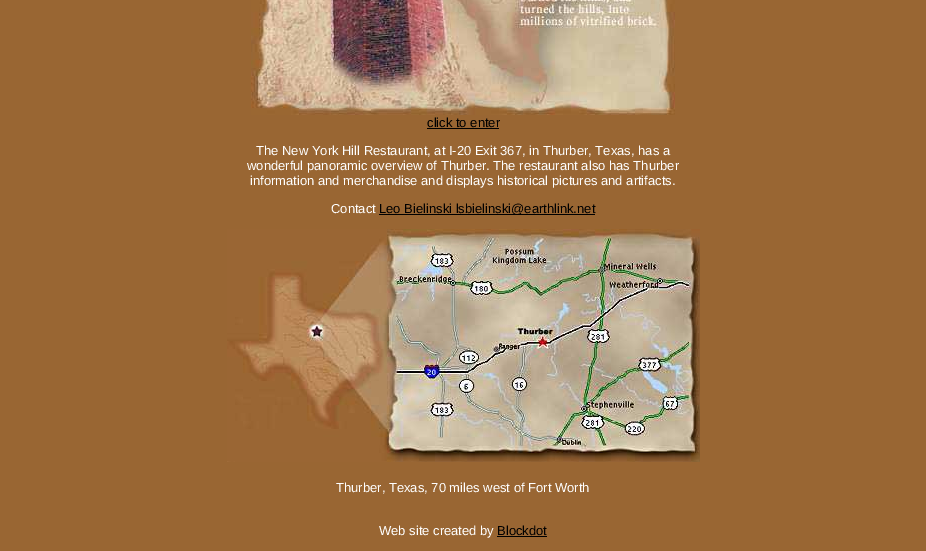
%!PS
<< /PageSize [926 551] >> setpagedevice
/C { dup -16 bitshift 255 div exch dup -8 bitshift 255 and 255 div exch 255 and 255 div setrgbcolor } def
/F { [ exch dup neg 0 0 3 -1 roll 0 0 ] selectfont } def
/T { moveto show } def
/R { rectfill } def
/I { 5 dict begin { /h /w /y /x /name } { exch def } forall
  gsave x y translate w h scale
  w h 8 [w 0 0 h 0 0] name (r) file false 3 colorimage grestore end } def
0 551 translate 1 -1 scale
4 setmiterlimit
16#996633 C
0 0 926 551 R
(1.rgb) 251 0 424 115 I
/LiberationSans-Regular 13 F
16#000000 C
(click to enter) 427 127 T
427 128 72 1 R
16#FFFFFF C
(The New York Hill Restaurant, at I-20 Exit 367, in Thurber, Texas, has a) 256 155 T
(wonderful panoramic overview of Thurber. The restaurant also has Thurber) 247 170 T
(information and merchandise and displays historical pictures and artifacts.) 250 185 T
(Contact) 331 213 T
16#000000 C
379 214 216 1 R
(Leo Bielinski lsbielinski@earthlink.net) 379 213 T
(2.rgb) 227 229 473 233 I
16#FFFFFF C
(Thurber, Texas, 70 miles west of Fort Worth) 336 492 T
(Web site created by) 379 535 T
16#000000 C
(Blockdot) 497 535 T
497 536 50 1 R
showpage
